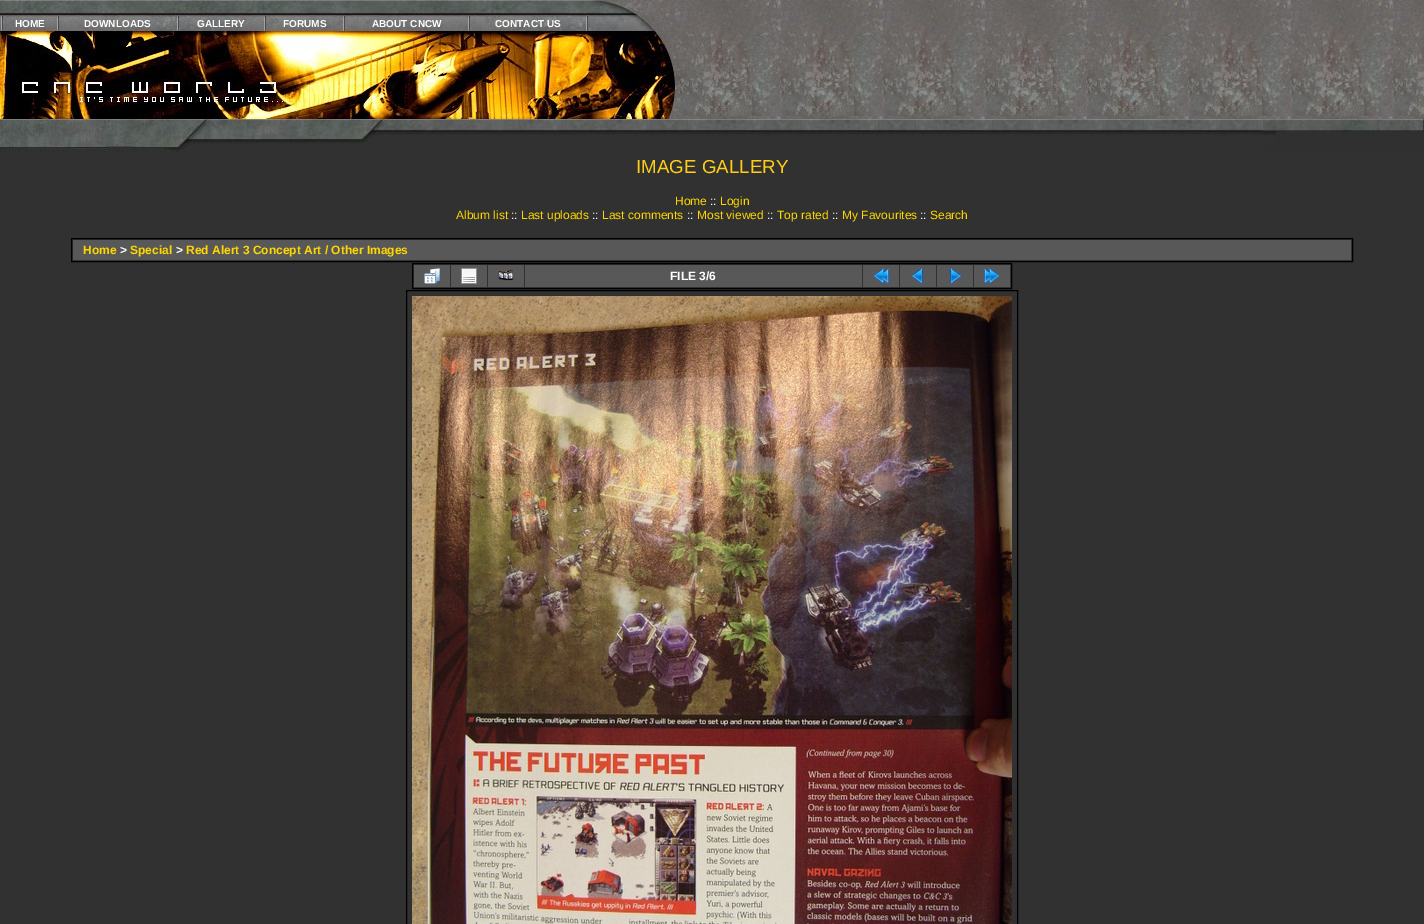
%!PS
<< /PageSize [1424 924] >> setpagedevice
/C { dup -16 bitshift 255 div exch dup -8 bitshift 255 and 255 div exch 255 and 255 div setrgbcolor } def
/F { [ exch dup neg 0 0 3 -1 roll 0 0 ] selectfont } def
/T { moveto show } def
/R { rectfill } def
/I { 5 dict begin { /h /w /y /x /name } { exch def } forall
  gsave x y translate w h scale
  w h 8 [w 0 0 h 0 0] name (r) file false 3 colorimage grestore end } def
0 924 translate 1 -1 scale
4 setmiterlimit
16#313131 C
0 0 1424 924 R
(1.rgb) 0 0 589 16 I
(2.rgb) 0 16 589 15 I
(3.rgb) 1 16 2 15 I
/LiberationSans-Bold 10 F
16#FFFFFF C
(HOME) 15 27 T
(3.rgb) 57 16 2 15 I
(DOWNLOADS) 84 27 T
(3.rgb) 177 16 2 15 I
(GALLERY) 197 27 T
(3.rgb) 264 16 2 15 I
(FORUMS) 283 27 T
(3.rgb) 343 16 2 15 I
(ABOUT CNCW) 372 27 T
(3.rgb) 468 16 2 15 I
(CONTACT US) 495 27 T
(3.rgb) 586 16 2 15 I
(4.rgb) 0 31 296 88 I
(5.rgb) 296 31 293 88 I
(6.rgb) 589 0 90 119 I
(7.rgb) 679 0 745 119 I
(8.rgb) 0 119 179 35 I
(9.rgb) 179 119 433 32 I
(10.rgb) 612 119 651 16 I
(11.rgb) 1263 119 161 35 I
/LiberationSans-Regular 18.75 F
16#FFCE18 C
(IMAGE GALLERY) 636 173 T
/LiberationSans-Regular 12 F
16#FFD700 C
(Home) 675 205 T
16#FFFFFF C
(::) 710 205 T
16#FFD700 C
(Login) 720 205 T
(Album list) 456 219 T
16#FFFFFF C
(::) 511 219 T
16#FFD700 C
(Last uploads) 521 219 T
16#FFFFFF C
(::) 592 219 T
16#FFD700 C
(Last comments) 602 219 T
16#FFFFFF C
(::) 687 219 T
16#FFD700 C
(Most viewed) 697 219 T
16#FFFFFF C
(::) 767 219 T
16#FFD700 C
(Top rated) 777 219 T
16#FFFFFF C
(::) 832 219 T
16#FFD700 C
(My Favourites) 842 219 T
16#FFFFFF C
(::) 920 219 T
16#FFD700 C
(Search) 930 219 T
16#000000 C
71.5 238.5 1281 23 rectstroke
16#585858 C
73 240 1278 20 R
/LiberationSans-Bold 12 F
16#FFD700 C
(Home) 83 254 T
16#FFFFFF C
(>) 120 254 T
16#FFD700 C
(Special) 130 254 T
16#FFFFFF C
(>) 176 254 T
16#FFD700 C
(Red Alert 3 Concept Art / Other Images) 186 254 T
16#000000 C
412.5 263.5 599 25 rectstroke
16#585858 C
414 265 36 22 R
(12.rgb) 424 268 16 16 I
451 265 36 22 R
(13.rgb) 461 268 16 16 I
488 265 36 22 R
(14.rgb) 498 269 16 12 I
525 265 337 22 R
16#FFFFFF C
(FILE 3/6) 670 280 T
16#585858 C
863 265 36 22 R
(15.rgb) 873 268 16 16 I
900 265 36 22 R
(16.rgb) 911 268 12 16 I
937 265 36 22 R
(17.rgb) 950 268 12 16 I
974 265 36 22 R
(18.rgb) 984 268 16 16 I
16#000000 C
406.5 290.5 611 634 rectstroke
(19.rgb) 412 296 600 628 I
showpage
